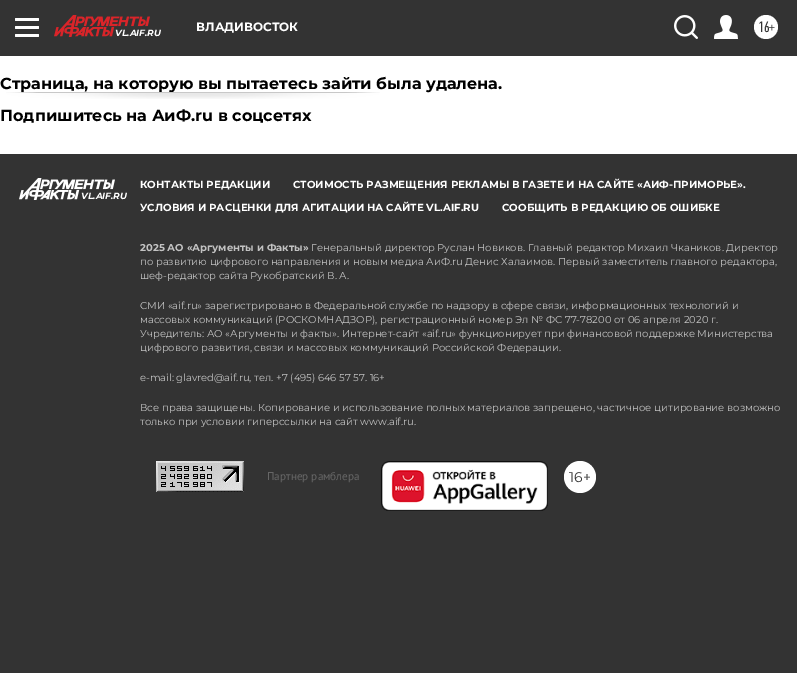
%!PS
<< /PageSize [797 673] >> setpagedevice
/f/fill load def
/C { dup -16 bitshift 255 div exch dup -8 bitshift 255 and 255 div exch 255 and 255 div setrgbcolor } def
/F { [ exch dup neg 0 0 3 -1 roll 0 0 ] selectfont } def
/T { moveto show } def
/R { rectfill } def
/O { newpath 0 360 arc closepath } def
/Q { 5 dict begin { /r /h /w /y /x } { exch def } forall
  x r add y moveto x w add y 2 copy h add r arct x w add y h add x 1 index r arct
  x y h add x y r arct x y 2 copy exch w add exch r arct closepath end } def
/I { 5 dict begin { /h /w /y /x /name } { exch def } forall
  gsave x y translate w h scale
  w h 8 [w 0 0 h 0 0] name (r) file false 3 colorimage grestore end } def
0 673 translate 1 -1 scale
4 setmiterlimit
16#333333 C
0 0 797 673 R
16#FFFFFF C
15 18 24 3 1 Q f
15 26 24 3 1 Q f
15 34 24 3 1 Q f
(1.rgb) 54 15 96 22 I
/Montserrat-BoldItalic 9 F
(VL.AIF.RU) 115 36 T
/Montserrat-Bold 12 F
(ВЛАДИВОСТОК) 196 31 T
(2.rgb) 674 15 24 24 I
(3.rgb) 714 15 24 24 I
766 27 12 O f
/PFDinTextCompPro-Regular 15 F
16#333333 C
(16+) 758 32 T
16#FFFFFF C
0 56 797 98 R
/Montserrat-Bold 16 F
16#000000 C
(Страница, на которую вы пытаетесь зайти была удалена.) 0 89 T
(4.rgb) 6 92 374 7 I
(Подпишитесь на АиФ.ru в соцсетях) 0 121 T
(5.rgb) 19 178 96 22 I
/Montserrat-BoldItalic 9 F
16#FFFFFF C
(VL.AIF.RU) 81 199 T
/Montserrat-Bold 10.2 F
(КОНТАКТЫ РЕДАКЦИИ) 140 188 T
(СТОИМОСТЬ РАЗМЕЩЕНИЯ РЕКЛАМЫ В ГАЗЕТЕ И НА САЙТЕ «АИФ-ПРИМОРЬЕ».) 293 188 T
(УСЛОВИЯ И РАСЦЕНКИ ДЛЯ АГИТАЦИИ НА САЙТЕ VL.AIF.RU) 140 211 T
(СООБЩИТЬ В РЕДАКЦИЮ ОБ ОШИБКЕ) 502 211 T
/Montserrat-Bold 10 F
16#C2C2C2 C
(2025 АО «Аргументы и Факты») 140 251 T
/Montserrat-Regular 10 F
(Генеральный директор Руслан Новиков. Главный редактор Михаил Чкаников. Директор) 311 251 T
(по развитию цифрового направления и новым медиа АиФ.ru Денис Халаимов. Первый заместитель главного редактора,) 140 265 T
(шеф-редактор сайта Рукобратский В. А.) 140 279 T
(СМИ «aif.ru» зарегистрировано в Федеральной службе по надзору в сфере связи, информационных технологий и) 140 309 T
(массовых коммуникаций \(РОСКОМНАДЗОР\), регистрационный номер Эл № ФС 77-78200 от 06 апреля 2020 г.) 140 323 T
(Учредитель: АО «Аргументы и факты». Интернет-сайт «aif.ru» функционирует при финансовой поддержке Министерства) 140 337 T
(цифрового развития, связи и массовых коммуникаций Российской Федерации.) 140 351 T
(e-mail: glavred@aif.ru, тел. +7 \(495\) 646 57 57. 16+) 140 381 T
(Все права защищены. Копирование и использование полных материалов запрещено, частичное цитирование возможно) 140 411 T
(только при условии гиперссылки на сайт www.aif.ru.) 140 425 T
(6.rgb) 156 461 88 31 I
/PTSans-Regular 11.25 F
16#666666 C
(Партнер рамблера) 267 480 T
(7.rgb) 381 461 167 50 I
16#FFFFFF C
580 477 16 O f
/Montserrat-Regular 14 F
16#333333 C
(16+) 569 482 T
showpage
